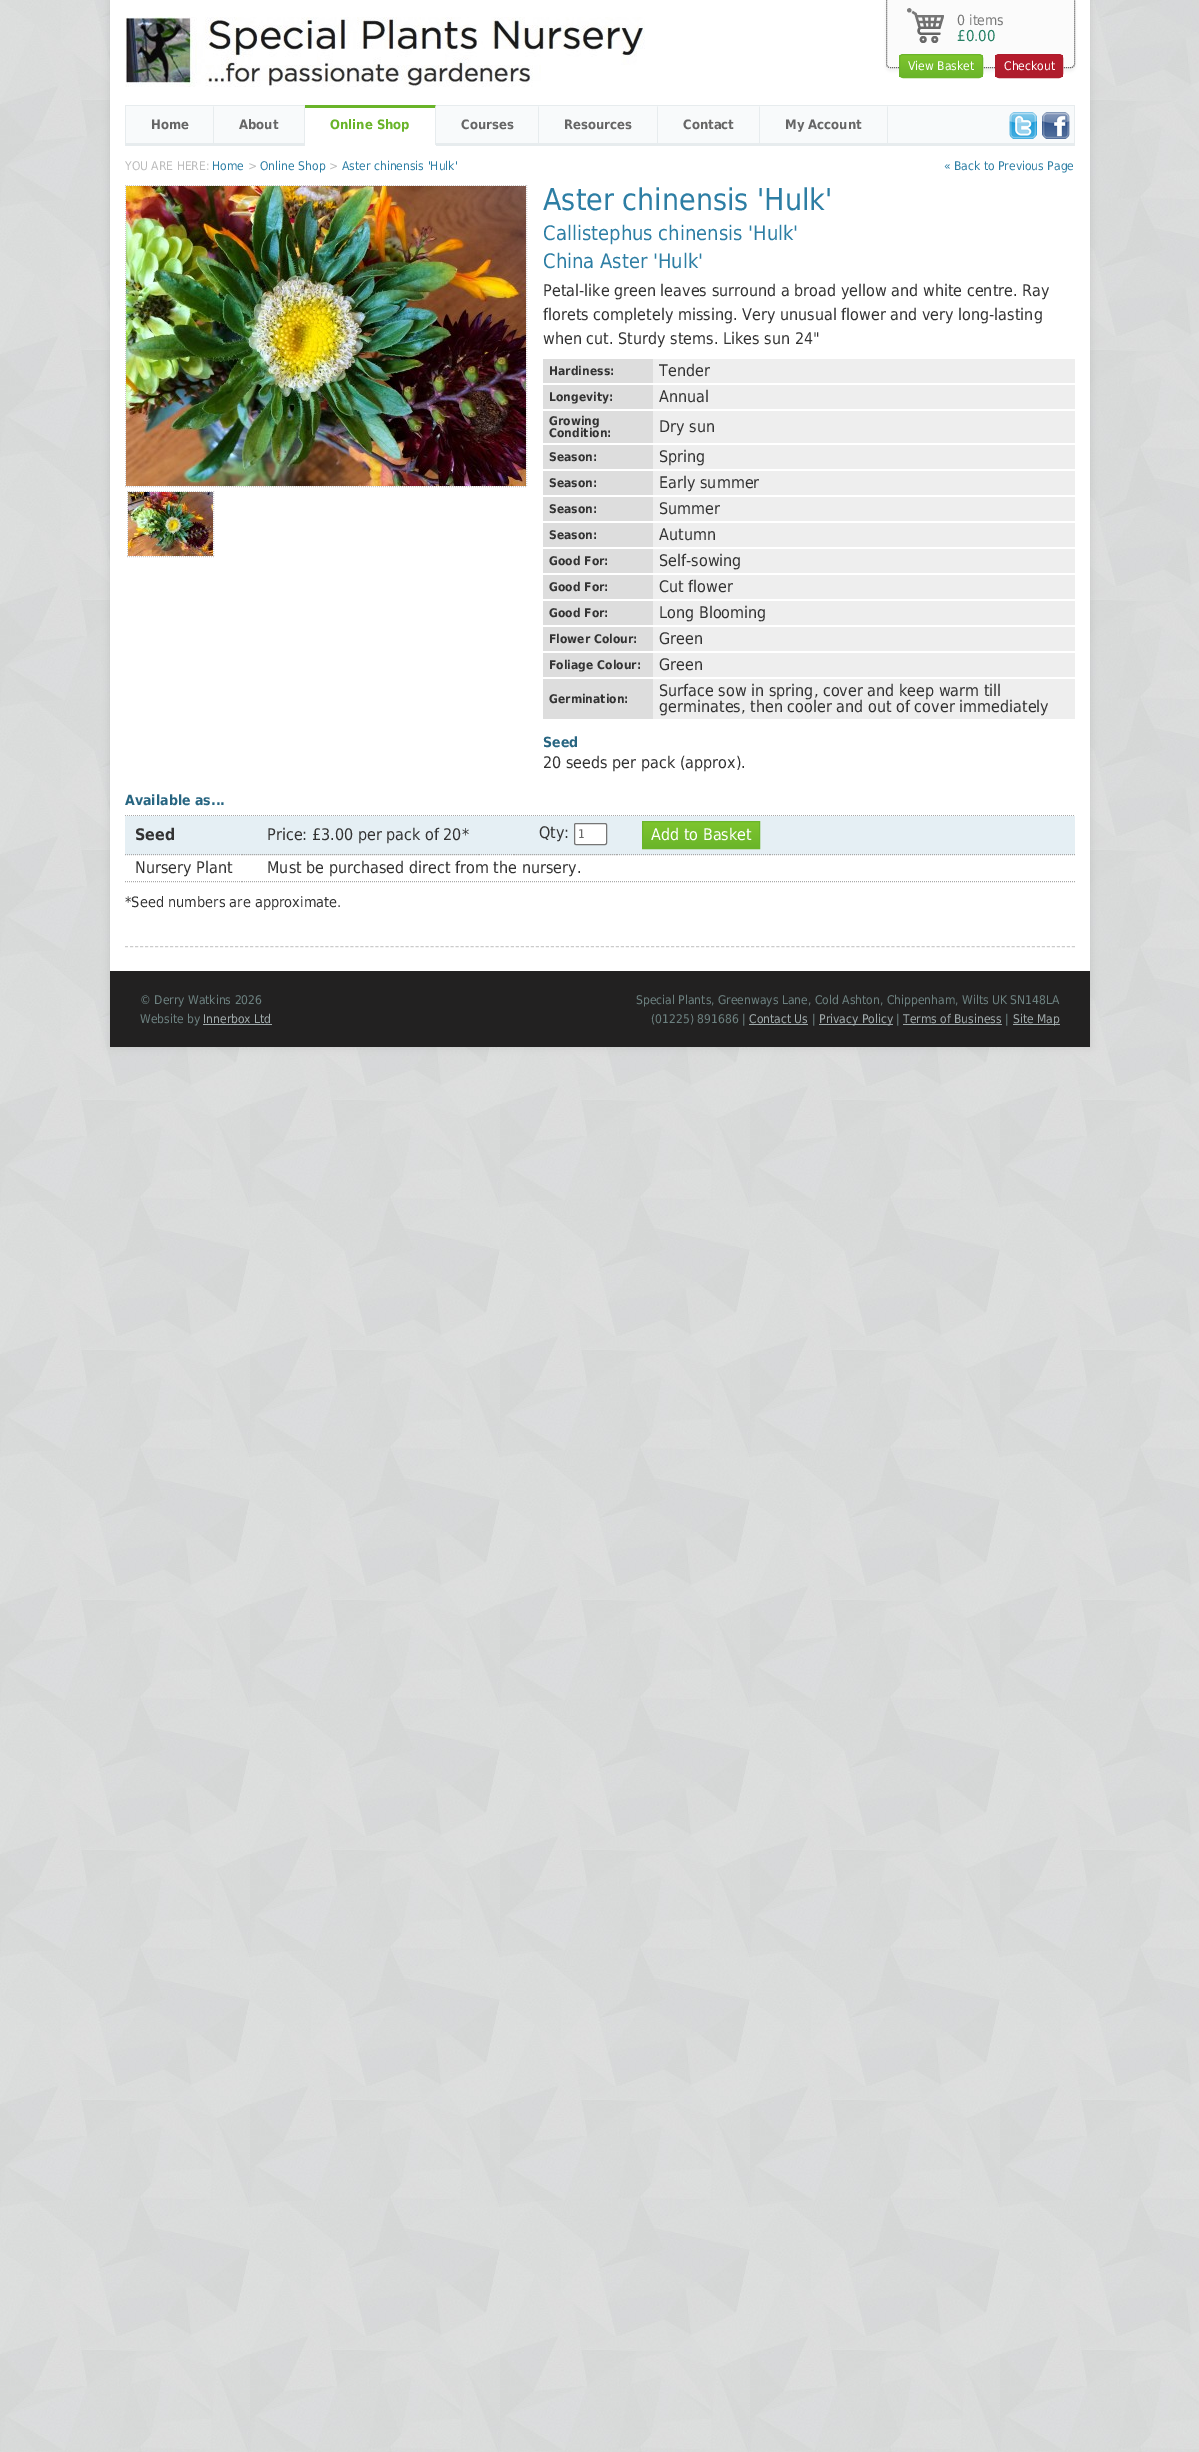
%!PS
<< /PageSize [1199 2452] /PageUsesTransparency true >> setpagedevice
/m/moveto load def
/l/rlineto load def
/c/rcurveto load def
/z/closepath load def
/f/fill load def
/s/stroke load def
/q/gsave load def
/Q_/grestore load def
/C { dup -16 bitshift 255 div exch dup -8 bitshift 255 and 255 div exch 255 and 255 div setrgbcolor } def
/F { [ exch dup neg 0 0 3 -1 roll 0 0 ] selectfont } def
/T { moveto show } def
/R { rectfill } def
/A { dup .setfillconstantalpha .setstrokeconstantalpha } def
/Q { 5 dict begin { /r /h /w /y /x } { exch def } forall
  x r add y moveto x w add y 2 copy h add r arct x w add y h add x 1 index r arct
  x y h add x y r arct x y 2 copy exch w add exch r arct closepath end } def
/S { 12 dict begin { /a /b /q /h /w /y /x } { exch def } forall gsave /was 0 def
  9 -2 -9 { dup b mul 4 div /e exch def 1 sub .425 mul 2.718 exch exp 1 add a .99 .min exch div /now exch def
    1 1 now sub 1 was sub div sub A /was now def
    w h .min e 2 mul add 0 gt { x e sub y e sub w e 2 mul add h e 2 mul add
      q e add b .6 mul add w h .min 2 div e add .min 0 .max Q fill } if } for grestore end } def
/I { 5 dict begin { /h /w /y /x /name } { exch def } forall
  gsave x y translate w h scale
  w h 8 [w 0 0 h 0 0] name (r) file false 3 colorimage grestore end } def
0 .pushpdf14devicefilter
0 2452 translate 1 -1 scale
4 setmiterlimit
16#FFFFFF C
0 0 1199 2452 R
(1.rgb) 0 0 1199 2452 I
16#000000 C
110 0 980 1047 0 4 .1 S
16#FFFFFF C
110 0 980 971 R
(2.rgb) 125 17 520 70 I
16#000000 C
886 -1 189 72 4 1.5 .05 S
16#FBFBFB C
886 0 m 189 0 l 0 64 l 0 2 -2 4 -4 4 c -181 0 l -2 0 -4 -2 -4 -4 c z f
(3.rgb) 907 8 37 35 I
16#666666 C
[1 1] 0 setdash
890 -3.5 m 181 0 l 2 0 3.5 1.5 3.5 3.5 c 0 64 l 0 2 -1.5 3.5 -3.5 3.5 c -181 0 l -2 0 -3.5 -1.5 -3.5 -3.5 c 0 -64 l 0 -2 1.5 -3.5 3.5 -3.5 c z s
/DejaVuSans-Regular 14 F
16#777777 C
(0 items) 957 25 T
/DejaVuSans-Regular 15 F
16#278165 C
(£0.00) 957 41 T
q
899 54 84 24 4 Q clip newpath
q 899 55 m 84 0 l 0 22 l -84 0 l z clip newpath
<< /ShadingType 2 /ColorSpace /DeviceRGB /Coords [941 55 941 77] /Extend [true true] /Function << /FunctionType 2 /Domain [0 1] /C0 [.494 .773 .18] /C1 [.416 .71 .165] /N 1 >> >> shfill Q_
Q_
16#6AB52A C
[] 0 setdash
899.5 54.5 83 23 3.5 Q s
/DejaVuSans-Regular 12 F
16#FFFFFF C
(View Basket) 908 70 T
q
995 54 68 24 4 Q clip newpath
q 995 55 m 68 0 l 0 22 l -68 0 l z clip newpath
<< /ShadingType 2 /ColorSpace /DeviceRGB /Coords [1029 55 1029 77] /Extend [true true] /Function << /FunctionType 2 /Domain [0 1] /C0 [.718 .114 .173] /C1 [.682 .11 .173] /N 1 >> >> shfill Q_
Q_
16#AE1C2C C
995.5 54.5 67 23 3.5 Q s
16#FFFFFF C
(Checkout) 1004 70 T
16#F8FAFB C
126 106 948 37 R
16#E7ECEE C
125 105 950 1 R
1074 105 1 41 R
125 143 950 3 R
125 105 1 41 R
214 105 m 0 40 l -1 0 l 0 -37 l z f
/DejaVuSans-Bold 13 F
16#666666 C
(Home) 151 129 T
16#E7ECEE C
305 105 m 0 40 l -1 0 l 0 -37 l z f
16#666666 C
(About) 239 129 T
16#FFFFFF C
305 105 131 40 R
16#69B429 C
305 105 m 131 0 l -1 3 l -130 0 l z f
16#E7ECEE C
436 105 m 0 41 l -1 -1 l 0 -37 l z f
16#FFFFFF C
305 145 131 1 R
16#69B429 C
(Online Shop) 330 129 T
16#E7ECEE C
539 105 m 0 40 l -1 0 l 0 -37 l z f
16#666666 C
(Courses) 461 129 T
16#E7ECEE C
658 105 m 0 40 l -1 0 l 0 -37 l z f
16#666666 C
(Resources) 564 129 T
16#E7ECEE C
760 105 m 0 40 l -1 0 l 0 -37 l z f
16#666666 C
(Contact) 683 129 T
16#E7ECEE C
888 105 m 0 40 l -1 0 l 0 -37 l z f
16#666666 C
(My Account) 785 129 T
(4.rgb) 1009 112 28 27 I
(5.rgb) 1042 112 28 27 I
/DejaVuSans-Regular 12 F
16#BBBBBB C
(YOU ARE HERE:) 125 170 T
16#2D7EA4 C
(Home) 212 170 T
16#BBBBBB C
(>) 248 170 T
16#2D7EA4 C
(Online Shop) 260 170 T
16#BBBBBB C
(>) 329 170 T
16#2D7EA4 C
(Aster chinensis 'Hulk') 342 170 T
(« Back to Previous Page) 944 170 T
16#CCCCCC C
[3 2.01] 0 setdash
125 946.5 m 950 0 l s
[1 1] 0 setdash
125 185.5 m 402 0 l s
526.5 185 m 0 302 l s
125 486.5 m 402 0 l s
125.5 185 m 0 302 l s
(6.rgb) 126 186 400 300 I
127 491.5 m 87 0 l s
127.5 491 m 0 66 l s
(7.rgb) 128 492 85 64 I
213.5 491 m 0 66 l s
127 556.5 m 87 0 l s
/DejaVuSans-Regular 30 F
16#2D7EA4 C
(Aster chinensis 'Hulk') 543 210 T
/DejaVuSans-Regular 20 F
(Callistephus chinensis 'Hulk') 543 240 T
(China Aster 'Hulk') 543 268 T
/DejaVuSans-Regular 16 F
16#333333 C
(Petal-like green leaves surround a broad yellow and white centre. Ray) 543 296 T
(florets completely missing. Very unusual flower and very long-lasting) 543 320 T
(when cut. Sturdy stems. Likes sun 24") 543 344 T
16#DDDDDD C
543 359 110 24 R
/DejaVuSans-Bold 12 F
16#333333 C
(Hardiness:) 549 375 T
16#EEEEEE C
653 359 422 24 R
/DejaVuSans-Regular 16 F
16#333333 C
(Tender) 659 376 T
16#DDDDDD C
543 385 110 24 R
/DejaVuSans-Bold 12 F
16#333333 C
(Longevity:) 549 401 T
16#EEEEEE C
653 385 422 24 R
/DejaVuSans-Regular 16 F
16#333333 C
(Annual) 659 402 T
16#DDDDDD C
543 411 110 32 R
/DejaVuSans-Bold 12 F
16#333333 C
(Growing) 549 425 T
(Condition:) 549 437 T
16#EEEEEE C
653 411 422 32 R
/DejaVuSans-Regular 16 F
16#333333 C
(Dry sun) 659 432 T
16#DDDDDD C
543 445 110 24 R
/DejaVuSans-Bold 12 F
16#333333 C
(Season:) 549 461 T
16#EEEEEE C
653 445 422 24 R
/DejaVuSans-Regular 16 F
16#333333 C
(Spring) 659 462 T
16#DDDDDD C
543 471 110 24 R
/DejaVuSans-Bold 12 F
16#333333 C
(Season:) 549 487 T
16#EEEEEE C
653 471 422 24 R
/DejaVuSans-Regular 16 F
16#333333 C
(Early summer) 659 488 T
16#DDDDDD C
543 497 110 24 R
/DejaVuSans-Bold 12 F
16#333333 C
(Season:) 549 513 T
16#EEEEEE C
653 497 422 24 R
/DejaVuSans-Regular 16 F
16#333333 C
(Summer) 659 514 T
16#DDDDDD C
543 523 110 24 R
/DejaVuSans-Bold 12 F
16#333333 C
(Season:) 549 539 T
16#EEEEEE C
653 523 422 24 R
/DejaVuSans-Regular 16 F
16#333333 C
(Autumn) 659 540 T
16#DDDDDD C
543 549 110 24 R
/DejaVuSans-Bold 12 F
16#333333 C
(Good For:) 549 565 T
16#EEEEEE C
653 549 422 24 R
/DejaVuSans-Regular 16 F
16#333333 C
(Self-sowing) 659 566 T
16#DDDDDD C
543 575 110 24 R
/DejaVuSans-Bold 12 F
16#333333 C
(Good For:) 549 591 T
16#EEEEEE C
653 575 422 24 R
/DejaVuSans-Regular 16 F
16#333333 C
(Cut flower) 659 592 T
16#DDDDDD C
543 601 110 24 R
/DejaVuSans-Bold 12 F
16#333333 C
(Good For:) 549 617 T
16#EEEEEE C
653 601 422 24 R
/DejaVuSans-Regular 16 F
16#333333 C
(Long Blooming) 659 618 T
16#DDDDDD C
543 627 110 24 R
/DejaVuSans-Bold 12 F
16#333333 C
(Flower Colour:) 549 643 T
16#EEEEEE C
653 627 422 24 R
/DejaVuSans-Regular 16 F
16#333333 C
(Green) 659 644 T
16#DDDDDD C
543 653 110 24 R
/DejaVuSans-Bold 12 F
16#333333 C
(Foliage Colour:) 549 669 T
16#EEEEEE C
653 653 422 24 R
/DejaVuSans-Regular 16 F
16#333333 C
(Green) 659 670 T
16#DDDDDD C
543 679 110 40 R
/DejaVuSans-Bold 12 F
16#333333 C
(Germination:) 549 703 T
16#EEEEEE C
653 679 422 40 R
/DejaVuSans-Regular 16 F
16#333333 C
(Surface sow in spring, cover and keep warm till) 659 696 T
(germinates, then cooler and out of cover immediately) 659 712 T
/DejaVuSans-Bold 14 F
16#276581 C
(Seed) 543 747 T
/DejaVuSans-Regular 16 F
16#333333 C
(20 seeds per pack \(approx\).) 543 768 T
/DejaVuSans-Bold 14 F
16#276581 C
(Available as...) 125 805 T
16#AAAAAA C
125 815.5 m 950 0 l s
16#E5EFF4 C
125 816 950 39 R
16#AAAAAA C
125 854.5 m 117 0 l s
/DejaVuSans-Bold 16 F
16#333333 C
(Seed) 135 840 T
16#AAAAAA C
242 854.5 m 237 0 l s
/DejaVuSans-Regular 16 F
16#333333 C
(Price: £3.00 per pack of 20*) 267 840 T
16#AAAAAA C
514 854.5 m 103 0 l s
16#333333 C
(Qty:) 539 838 T
16#FFFFFF C
574.5 823.5 32 21 1.5 Q q f Q_
16#767676 C
[] 0 setdash
s
/DejaVuSans-Regular 12 F
16#666666 C
(1) 578 838 T
16#AAAAAA C
[1 1] 0 setdash
617 854.5 m 153 0 l s
q 643 822 m 116 0 l 0 26 l -116 0 l z clip newpath
<< /ShadingType 2 /ColorSpace /DeviceRGB /Coords [701 822 701 848] /Extend [true true] /Function << /FunctionType 2 /Domain [0 1] /C0 [.494 .773 .18] /C1 [.416 .71 .165] /N 1 >> >> shfill Q_
16#6AB52A C
[] 0 setdash
642.5 821.5 117 27 rectstroke
/DejaVuSans-Regular 16 F
16#FFFFFF C
(Add to Basket) 651 840 T
16#AAAAAA C
[1 1] 0 setdash
479 854.5 m 35 0 l s
770 854.5 m 305 0 l s
125 881.5 m 117 0 l s
16#333333 C
(Nursery Plant) 135 873 T
16#AAAAAA C
242 881.5 m 528 0 l s
16#333333 C
(Must be purchased direct from the nursery.) 267 873 T
16#AAAAAA C
770 881.5 m 305 0 l s
/DejaVuSans-Regular 14.4 F
16#333333 C
(*Seed numbers are approximate.) 125 907 T
16#222121 C
110 971 980 76 R
/DejaVuSans-Regular 12 F
16#6C8180 C
(© Derry Watkins 2026) 140 1004 T
(Website by) 140 1023 T
16#A1ABAC C
(Innerbox Ltd) 203 1023 T
203 1024 69 1 R
16#6C8180 C
(Special Plants, Greenways Lane, Cold Ashton, Chippenham, Wilts UK SN148LA) 636 1004 T
(\(01225\) 891686 |) 651 1023 T
16#A1ABAC C
(Contact Us) 749 1023 T
749 1024 59 1 R
16#6C8180 C
(|) 812 1023 T
16#A1ABAC C
819 1024 74 1 R
(Privacy Policy) 819 1023 T
16#6C8180 C
(|) 896 1023 T
16#A1ABAC C
(Terms of Business) 903 1023 T
903 1024 99 1 R
16#6C8180 C
(|) 1005 1023 T
16#A1ABAC C
1013 1024 47 1 R
(Site Map) 1013 1023 T
.poppdf14devicefilter showpage
